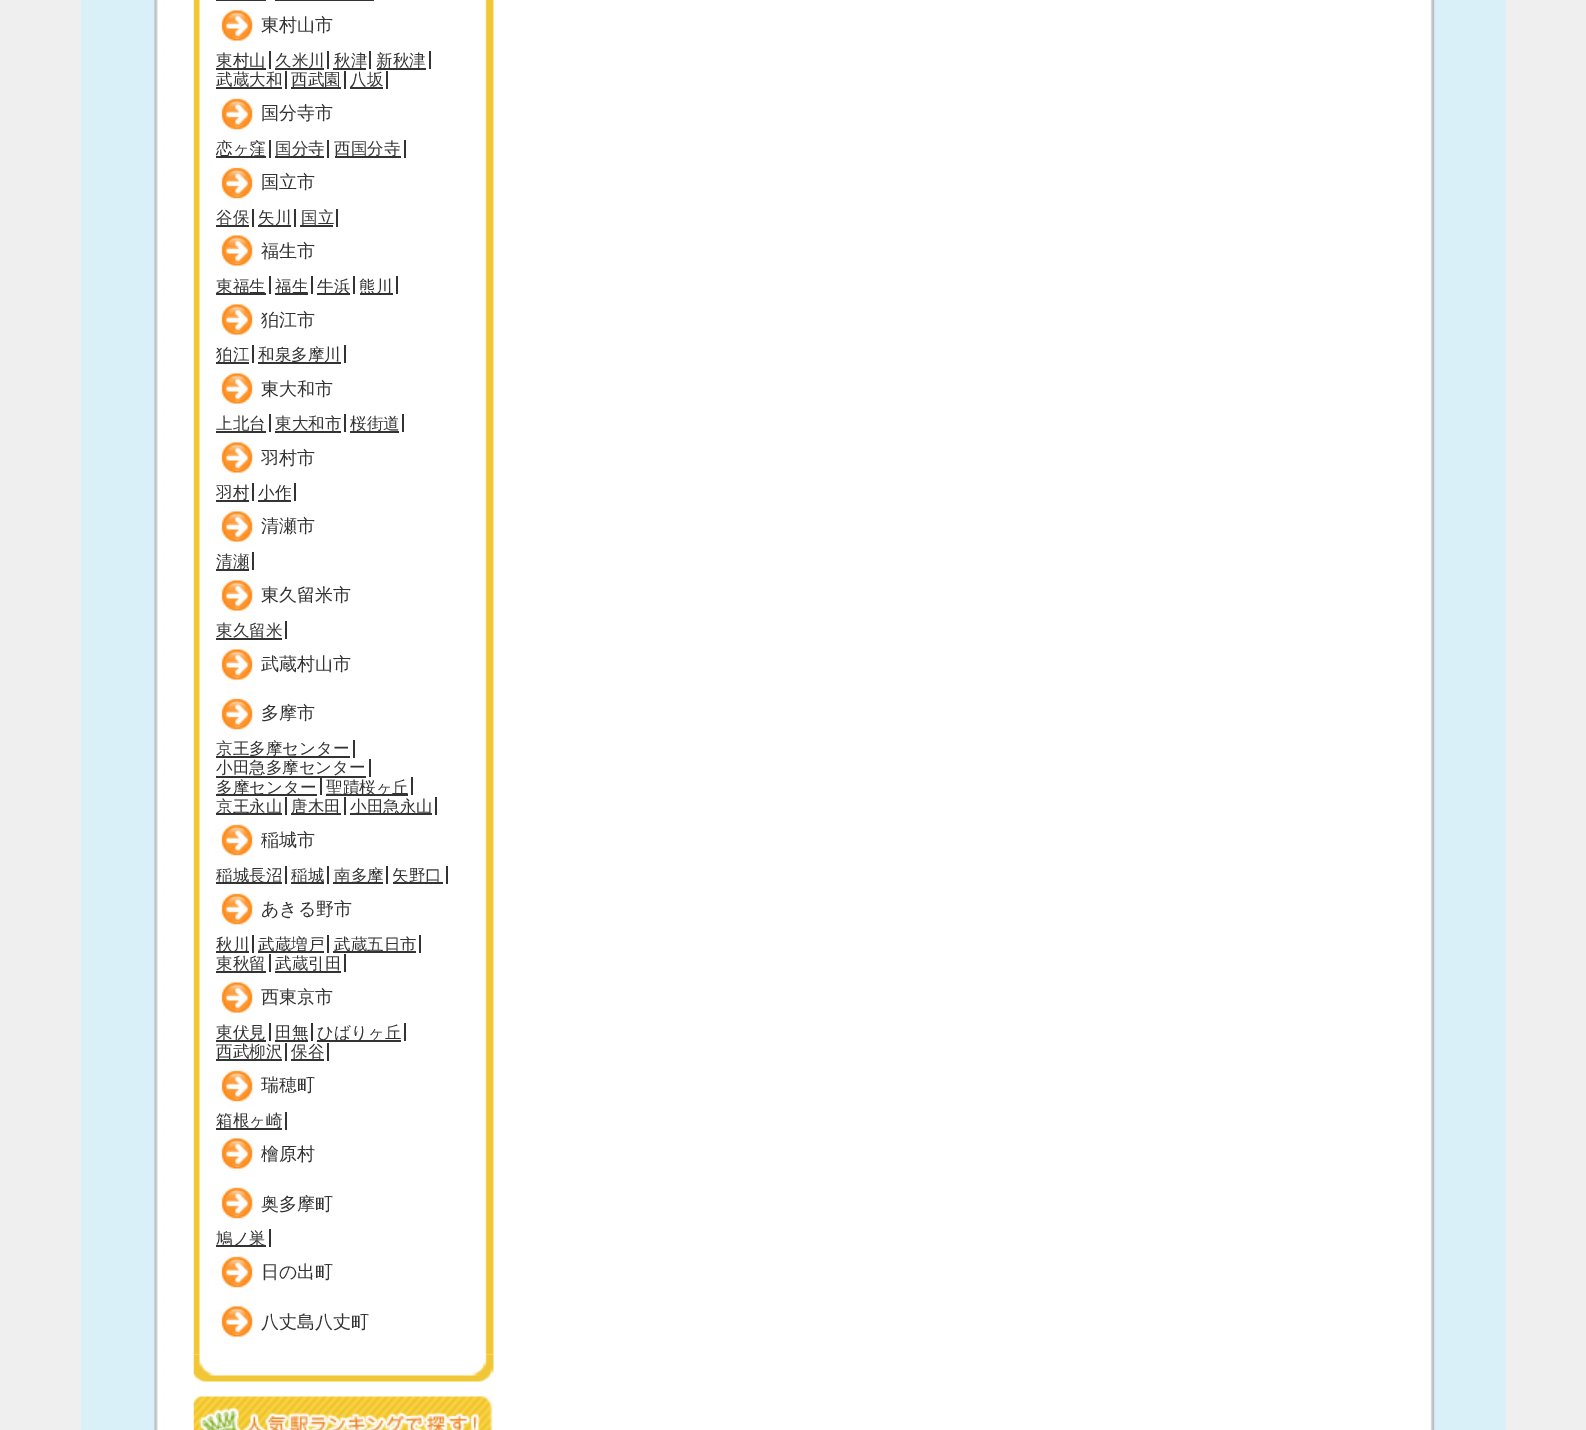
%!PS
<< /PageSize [1586 1430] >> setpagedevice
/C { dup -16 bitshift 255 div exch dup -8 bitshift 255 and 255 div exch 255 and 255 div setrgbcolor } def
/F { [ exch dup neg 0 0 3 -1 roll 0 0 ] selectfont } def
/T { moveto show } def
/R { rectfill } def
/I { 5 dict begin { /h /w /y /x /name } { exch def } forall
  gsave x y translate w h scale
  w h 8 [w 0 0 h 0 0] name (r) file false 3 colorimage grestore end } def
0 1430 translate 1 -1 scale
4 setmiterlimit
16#EFEFEF C
0 0 1586 1430 R
(1.rgb) 81 0 1425 1430 I
(2.rgb) 193 0 301 1355 I
16#333333 C
216 0 50 1 R
275 0 99 1 R
(3.rgb) 216 5 37 43 I
/WenQuanYiZenHei-Medium 18 F
(東村山市) 261 31 T
216 68 50 2 R
/WenQuanYiZenHei-Medium 16.5 F
(東村山) 216 66 T
269 51 2 18 R
275 68 49 2 R
(久米川) 275 66 T
327 51 2 18 R
333 68 33 2 R
(秋津) 334 66 T
369 51 2 18 R
377 68 49 2 R
(新秋津) 376 66 T
429 51 2 18 R
(武蔵大和) 216 85 T
285 71 2 18 R
216 87 66 2 R
(西武園) 291 85 T
344 71 2 18 R
291 87 50 2 R
350 87 33 2 R
(八坂) 350 85 T
386 71 2 18 R
(4.rgb) 216 98 37 39 I
/WenQuanYiZenHei-Medium 18 F
(国分寺市) 261 119 T
216 156 50 2 R
/WenQuanYiZenHei-Medium 16.5 F
(恋ヶ窪) 216 154 T
269 140 2 18 R
275 156 49 2 R
(国分寺) 275 154 T
327 140 2 18 R
335 156 66 2 R
(西国分寺) 334 154 T
404 140 2 18 R
(4.rgb) 216 167 37 39 I
/WenQuanYiZenHei-Medium 18 F
(国立市) 261 188 T
216 225 33 2 R
/WenQuanYiZenHei-Medium 16.5 F
(谷保) 216 223 T
252 209 2 18 R
258 225 33 2 R
(矢川) 258 223 T
294 209 2 18 R
(国立) 301 223 T
336 209 2 18 R
300 225 33 2 R
(3.rgb) 216 230 37 43 I
/WenQuanYiZenHei-Medium 18 F
(福生市) 261 257 T
216 293 50 2 R
/WenQuanYiZenHei-Medium 16.5 F
(東福生) 216 292 T
269 276 2 18 R
275 293 33 2 R
(福生) 275 292 T
311 276 2 18 R
317 293 33 2 R
(牛浜) 317 292 T
353 276 2 18 R
360 293 33 2 R
(熊川) 359 292 T
396 276 2 18 R
(3.rgb) 216 299 37 43 I
/WenQuanYiZenHei-Medium 18 F
(狛江市) 261 326 T
216 362 33 2 R
/WenQuanYiZenHei-Medium 16.5 F
(狛江) 216 360 T
252 345 2 18 R
258 362 83 2 R
(和泉多摩川) 258 360 T
344 345 2 18 R
(3.rgb) 216 368 37 43 I
/WenQuanYiZenHei-Medium 18 F
(東大和市) 261 395 T
/WenQuanYiZenHei-Medium 16.5 F
(上北台) 216 429 T
269 414 2 18 R
216 431 50 2 R
(東大和市) 275 429 T
344 414 2 18 R
275 431 66 2 R
350 431 49 2 R
(桜街道) 350 429 T
402 414 2 18 R
(3.rgb) 216 437 37 43 I
/WenQuanYiZenHei-Medium 18 F
(羽村市) 261 464 T
216 500 33 2 R
/WenQuanYiZenHei-Medium 16.5 F
(羽村) 216 498 T
252 483 2 18 R
258 500 33 2 R
(小作) 258 498 T
294 483 2 18 R
(3.rgb) 216 506 37 43 I
/WenQuanYiZenHei-Medium 18 F
(清瀬市) 261 532 T
216 569 33 2 R
/WenQuanYiZenHei-Medium 16.5 F
(清瀬) 216 567 T
252 552 2 18 R
(3.rgb) 216 575 37 43 I
/WenQuanYiZenHei-Medium 18 F
(東久留米市) 261 601 T
/WenQuanYiZenHei-Medium 16.5 F
(東久留米) 216 636 T
285 621 2 18 R
216 638 66 2 R
(3.rgb) 216 644 37 43 I
/WenQuanYiZenHei-Medium 18 F
(武蔵村山市) 261 670 T
(4.rgb) 216 698 37 39 I
(多摩市) 261 719 T
216 756 134 2 R
/WenQuanYiZenHei-Medium 16.5 F
(京王多摩センター) 216 754 T
353 740 2 18 R
(小田急多摩センター) 216 773 T
369 759 2 18 R
216 776 150 2 R
216 794 101 2 R
(多摩センター) 216 793 T
320 777 2 18 R
326 794 82 2 R
(聖蹟桜ヶ丘) 326 793 T
411 777 2 18 R
216 813 66 2 R
(京王永山) 216 812 T
285 797 2 18 R
291 813 50 2 R
(唐木田) 291 812 T
344 797 2 18 R
350 813 82 2 R
(小田急永山) 350 812 T
435 797 2 18 R
(4.rgb) 216 824 37 39 I
/WenQuanYiZenHei-Medium 18 F
(稲城市) 261 846 T
216 882 66 2 R
/WenQuanYiZenHei-Medium 16.5 F
(稲城長沼) 216 881 T
285 866 2 18 R
291 882 33 2 R
(稲城) 291 881 T
327 866 2 18 R
333 882 50 2 R
(南多摩) 334 881 T
386 866 2 18 R
393 882 50 2 R
(矢野口) 392 881 T
446 866 2 18 R
(4.rgb) 216 893 37 39 I
/WenQuanYiZenHei-Medium 18 F
(あきる野市) 261 915 T
216 951 33 2 R
/WenQuanYiZenHei-Medium 16.5 F
(秋川) 216 950 T
252 935 2 18 R
258 951 66 2 R
(武蔵増戸) 258 950 T
327 935 2 18 R
333 951 83 2 R
(武蔵五日市) 334 950 T
419 935 2 18 R
216 971 50 2 R
(東秋留) 216 969 T
269 954 2 18 R
(武蔵引田) 275 969 T
344 954 2 18 R
275 971 66 2 R
(3.rgb) 216 977 37 43 I
/WenQuanYiZenHei-Medium 18 F
(西東京市) 261 1003 T
216 1040 50 2 R
/WenQuanYiZenHei-Medium 16.5 F
(東伏見) 216 1038 T
269 1023 2 18 R
275 1040 33 2 R
(田無) 275 1038 T
311 1023 2 18 R
317 1040 84 2 R
(ひばりヶ丘) 317 1038 T
404 1023 2 18 R
216 1059 66 2 R
(西武柳沢) 216 1057 T
285 1043 2 18 R
291 1059 33 2 R
(保谷) 291 1057 T
327 1043 2 18 R
(4.rgb) 216 1070 37 39 I
/WenQuanYiZenHei-Medium 18 F
(瑞穂町) 261 1091 T
216 1128 66 2 R
/WenQuanYiZenHei-Medium 16.5 F
(箱根ヶ崎) 216 1126 T
285 1112 2 18 R
(3.rgb) 216 1133 37 43 I
/WenQuanYiZenHei-Medium 18 F
(檜原村) 261 1160 T
(4.rgb) 216 1187 37 39 I
(奥多摩町) 261 1210 T
216 1245 50 2 R
/WenQuanYiZenHei-Medium 16.5 F
(鳩ノ巣) 216 1244 T
269 1229 2 18 R
(4.rgb) 216 1256 37 39 I
/WenQuanYiZenHei-Medium 18 F
(日の出町) 261 1278 T
(3.rgb) 216 1301 37 43 I
(八丈島八丈町) 261 1328 T
(5.rgb) 193 1354 301 28 I
(6.rgb) 193 1396 301 34 I
showpage
